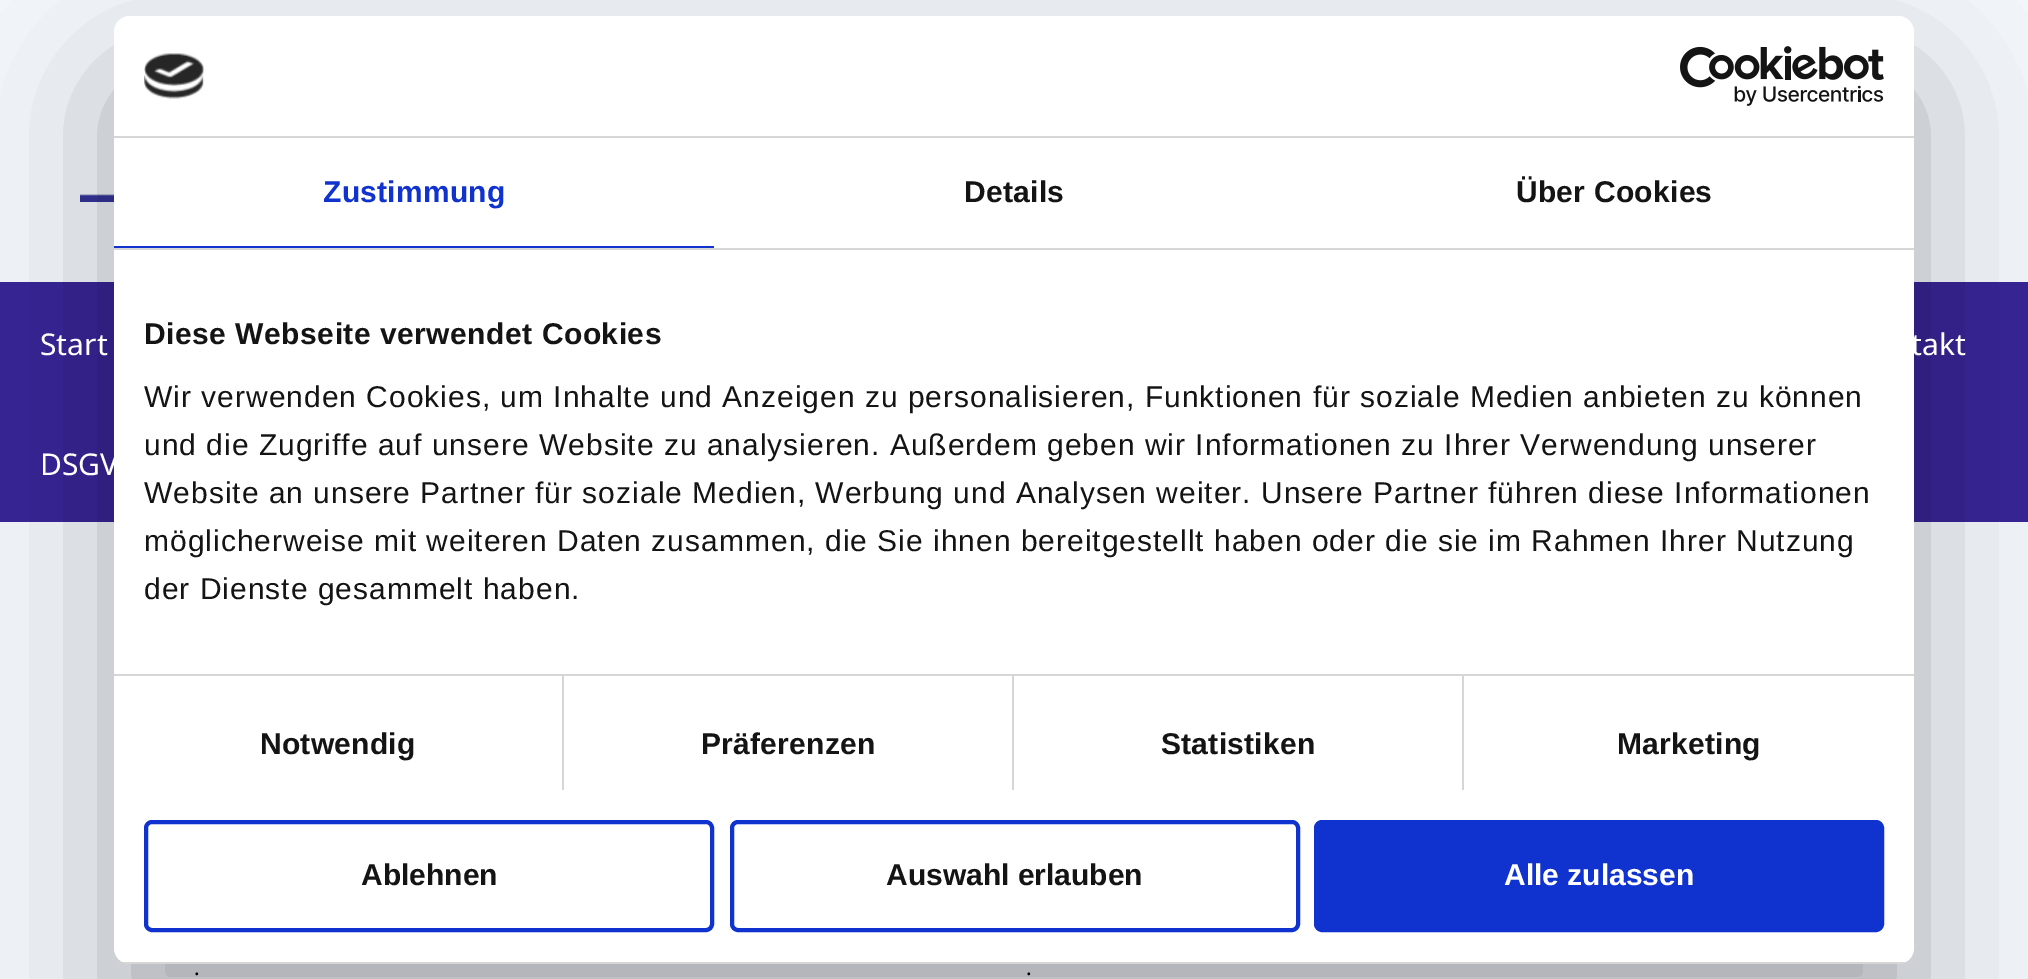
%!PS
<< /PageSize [2028 979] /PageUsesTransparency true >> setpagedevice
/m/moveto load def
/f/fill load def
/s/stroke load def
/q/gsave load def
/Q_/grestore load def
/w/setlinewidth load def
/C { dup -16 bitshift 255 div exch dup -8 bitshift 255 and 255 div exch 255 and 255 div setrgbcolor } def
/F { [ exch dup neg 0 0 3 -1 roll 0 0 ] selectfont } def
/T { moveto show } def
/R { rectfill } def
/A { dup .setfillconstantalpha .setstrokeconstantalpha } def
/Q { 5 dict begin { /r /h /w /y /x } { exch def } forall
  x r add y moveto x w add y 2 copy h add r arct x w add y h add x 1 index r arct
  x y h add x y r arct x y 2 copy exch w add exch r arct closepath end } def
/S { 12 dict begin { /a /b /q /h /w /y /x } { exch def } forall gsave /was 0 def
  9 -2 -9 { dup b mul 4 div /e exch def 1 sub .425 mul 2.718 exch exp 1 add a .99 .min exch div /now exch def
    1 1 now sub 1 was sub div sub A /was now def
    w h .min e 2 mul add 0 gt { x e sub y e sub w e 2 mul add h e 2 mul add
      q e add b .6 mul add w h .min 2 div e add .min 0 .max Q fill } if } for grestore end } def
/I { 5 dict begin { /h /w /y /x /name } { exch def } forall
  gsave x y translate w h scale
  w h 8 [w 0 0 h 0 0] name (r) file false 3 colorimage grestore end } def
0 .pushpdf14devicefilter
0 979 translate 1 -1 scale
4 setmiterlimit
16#F2F5FA C
0 0 2028 979 R
(1.rgb) 80 194 34 8 I
16#372495 C
0 282 2028 240 R
16#000000 C
114 80 1800 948 16 68 .3 S
16#FFFFFF C
114 16 1800 948 16 Q f
16#D6D6D6 C
114 136 1800 2 R
(2.rgb) 144 53 60 46 I
(3.rgb) 1680 46 204 60 I
114 248 1800 2 R
16#1032CF C
114 246 600 2 R
/LiberationSans-Bold 30 F
323 202 m .25 0 (Zustimmung) ashow
16#141414 C
964 202 m .25 0 (Details) ashow
1516 202 m .25 0 (Über Cookies) ashow
16#D6D6D6 C
114 674 1800 2 R
16#141414 C
144 344 m .5 0 (Diese Webseite verwendet Cookies) ashow
/LiberationSans-Regular 30 F
144 407 m 1 0 (Wir verwenden Cookies, um Inhalte und Anzeigen zu personalisieren, Funktionen für soziale Medien anbieten zu können) ashow
144 455 m 1 0 (und die Zugriffe auf unsere Website zu analysieren. Außerdem geben wir Informationen zu Ihrer Verwendung unserer) ashow
144 503 m 1 0 (Website an unsere Partner für soziale Medien, Werbung und Analysen weiter. Unsere Partner führen diese Informationen) ashow
144 551 m 1 0 (möglicherweise mit weiteren Daten zusammen, die Sie ihnen bereitgestellt haben oder die sie im Rahmen Ihrer Nutzung) ashow
144 599 m 1 0 (der Dienste gesammelt haben.) ashow
16#D6D6D6 C
562 676 2 114 R
/LiberationSans-Bold 30 F
16#141414 C
260 754 m .25 0 (Notwendig) ashow
16#D6D6D6 C
1012 676 2 114 R
16#141414 C
701 754 m .25 0 (Präferenzen) ashow
16#D6D6D6 C
1462 676 2 114 R
16#141414 C
1161 754 m .25 0 (Statistiken) ashow
1617 754 m .25 0 (Marketing) ashow
q
114 16 1800 948 16 Q clip newpath
16#D6D6D6 C
114 962 1800 2 R
Q_
16#1032CF C
4 w
146 822 566 108 6 Q s
16#141414 C
(Ablehnen) 361 885 T
16#1032CF C
732 822 566 108 6 Q s
16#141414 C
(Auswahl erlauben) 886 885 T
16#1032CF C
1316 822 566 108 6 Q q f Q_
s
16#FFFFFF C
(Alle zulassen) 1504 885 T
/NotoSans-Regular 30 F
(Start) 40 355 T
(takt) 1911 355 T
(DSGV) 40 475 T
/Roboto-Light 34 F
16#000000 C
(.) 193 975 T
(.) 1025 975 T
.poppdf14devicefilter showpage
